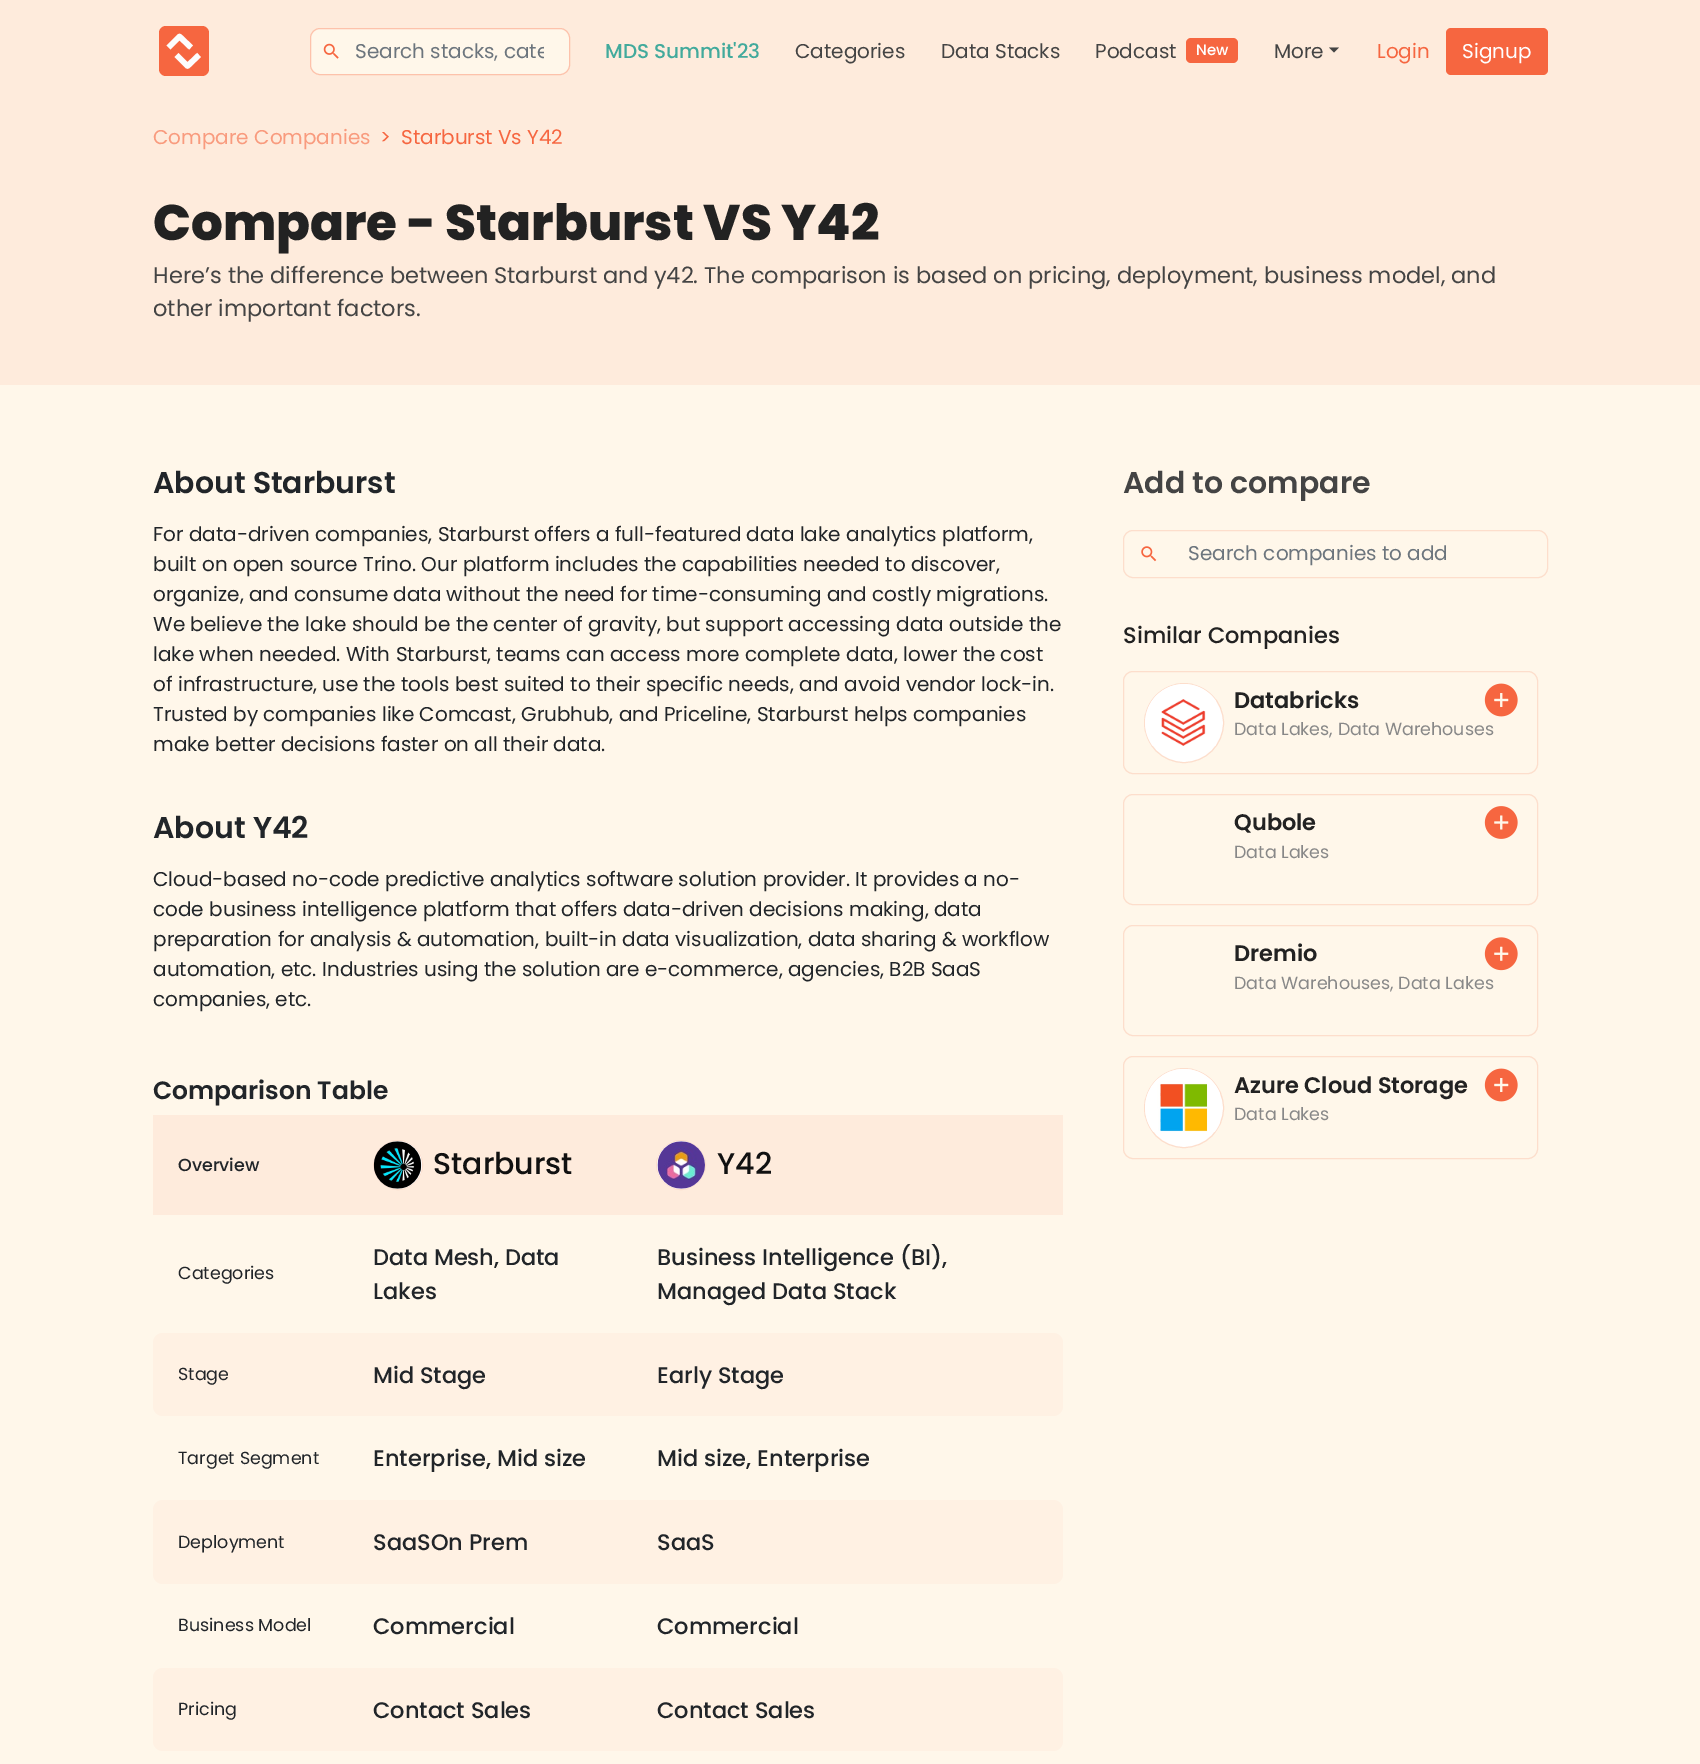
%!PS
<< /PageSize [1700 1764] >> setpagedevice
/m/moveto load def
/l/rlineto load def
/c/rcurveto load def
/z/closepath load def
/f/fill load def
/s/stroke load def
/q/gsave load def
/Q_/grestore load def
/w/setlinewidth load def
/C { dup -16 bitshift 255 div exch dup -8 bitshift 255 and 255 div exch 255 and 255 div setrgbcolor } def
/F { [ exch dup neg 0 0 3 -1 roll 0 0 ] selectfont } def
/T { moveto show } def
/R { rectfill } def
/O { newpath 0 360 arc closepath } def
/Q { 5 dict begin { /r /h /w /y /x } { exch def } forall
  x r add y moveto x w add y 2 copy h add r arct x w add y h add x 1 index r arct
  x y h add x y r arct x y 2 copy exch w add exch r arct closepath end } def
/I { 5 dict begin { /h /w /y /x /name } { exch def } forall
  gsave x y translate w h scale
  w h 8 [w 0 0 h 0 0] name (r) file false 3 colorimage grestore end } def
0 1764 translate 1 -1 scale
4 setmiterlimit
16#FFF7EA C
0 0 1700 1764 R
16#FEEBDC C
0 0 1700 385 R
16#F66640 C
159 26 50 50 7 Q f
16#FDFDFD C
5.6 w
1 setlinejoin
168.5 47.5 m 11 -11 l 11.5 11 l 199 55 m -11.5 11 l -11 -11 l s
16#FFF7EA C
310.5 28.5 259 46 9.5 Q q f Q_
16#FDC2AB C
1 w
0 setlinejoin
s
(1.rgb) 323 43 16 16 I
q
355 35 189 31 rectclip
/Poppins-Regular 20 F
16#6C757D C
(Search stacks, cate) 355 58 T
Q_
/Poppins-Medium 20 F
16#42AA9C C
(MDS Summit'23) 605 58 T
/Poppins-Regular 20 F
16#444444 C
(Categories) 795 58 T
(Data Stacks) 941 58 T
(Podcast) 1095 58 T
16#F66640 C
1186 38 52 25 5 Q f
/Poppins-Medium 15 F
16#FFFFFF C
(New) 1196 55 T
/Poppins-Regular 20 F
16#444444 C
(More) 1274 58 T
1329 47.5 m 10 0 l -5 5 l z f
16#F66640 C
(Login) 1377 58 T
1446 28 102 47 5 Q f
16#FFFFFF C
(Signup) 1462 58 T
16#F99B7E C
(Compare Companies) 153 144 T
16#F66640 C
(>) 380 144 T
(Starburst Vs Y42) 401 144 T
/Poppins-ExtraBold 50 F
16#222222 C
(Compare - Starburst VS Y42) 153 240 T
/Poppins-Regular 22.5 F
16#444444 C
(Here’s the difference between Starburst and y42. The comparison is based on pricing, deployment, business model, and) 153 283 T
(other important factors.) 153 316 T
/Poppins-SemiBold 30 F
16#212529 C
(About Starburst) 153 493 T
/Poppins-Regular 20 F
(For data-driven companies, Starburst offers a full-featured data lake analytics platform,) 153 541 T
(built on open source Trino. Our platform includes the capabilities needed to discover,) 153 571 T
(organize, and consume data without the need for time-consuming and costly migrations.) 153 601 T
(We believe the lake should be the center of gravity, but support accessing data outside the) 153 631 T
(lake when needed. With Starburst, teams can access more complete data, lower the cost) 153 661 T
(of infrastructure, use the tools best suited to their specific needs, and avoid vendor lock-in.) 153 691 T
(Trusted by companies like Comcast, Grubhub, and Priceline, Starburst helps companies) 153 721 T
(make better decisions faster on all their data.) 153 751 T
/Poppins-SemiBold 30 F
(About Y42) 153 838 T
/Poppins-Regular 20 F
(Cloud-based no-code predictive analytics software solution provider. It provides a no-) 153 886 T
(code business intelligence platform that offers data-driven decisions making, data) 153 916 T
(preparation for analysis & automation, built-in data visualization, data sharing & workflow) 153 946 T
(automation, etc. Industries using the solution are e-commerce, agencies, B2B SaaS) 153 976 T
(companies, etc.) 153 1006 T
/Poppins-SemiBold 25 F
(Comparison Table) 153 1099 T
16#FEEBDC C
153 1115 910 100 R
/Poppins-Medium 17.5 F
16#212529 C
(Overview) 178 1171 T
16#FFFFFF C
398 1165 24.5 O q f Q_
16#FDDECC C
s
(2.rgb) 373 1141 49 48 I
/Poppins-Medium 30 F
16#111111 C
(Starburst) 433 1174 T
16#FFFFFF C
681 1165 24.5 O q f Q_
16#FDDECC C
s
(3.rgb) 657 1141 48 48 I
16#111111 C
(Y42) 717 1174 T
/Poppins-Regular 17.5 F
16#212529 C
(Categories) 178 1279 T
/Poppins-Medium 22.5 F
(Data Mesh, Data) 373 1265 T
(Lakes) 373 1299 T
(Business Intelligence \(BI\),) 657 1265 T
(Managed Data Stack) 657 1299 T
16#FFF1E3 C
163 1333 m 185 0 l 0 83 l -185 0 l -5.5 0 -10 -4.5 -10 -10 c 0 -63 l 0 -5.5 4.5 -10 10 -10 c z f
/Poppins-Regular 17.5 F
16#212529 C
(Stage) 178 1380 T
16#FFF1E3 C
348 1333 283 83 R
/Poppins-Medium 22.5 F
16#212529 C
(Mid Stage) 373 1383 T
16#FFF1E3 C
631 1333 m 422 0 l 5.5 0 10 4.5 10 10 c 0 63 l 0 5.5 -4.5 10 -10 10 c -422 0 l z f
16#212529 C
(Early Stage) 657 1383 T
/Poppins-Regular 17.5 F
(Target Segment) 178 1464 T
/Poppins-Medium 22.5 F
(Enterprise, Mid size) 373 1466 T
(Mid size, Enterprise) 657 1466 T
16#FFF1E3 C
163 1500 m 185 0 l 0 84 l -185 0 l -5.5 0 -10 -4.5 -10 -10 c 0 -64 l 0 -5.5 4.5 -10 10 -10 c z f
/Poppins-Regular 17.5 F
16#212529 C
(Deployment) 178 1548 T
16#FFF1E3 C
348 1500 283 84 R
/Poppins-Medium 22.5 F
16#212529 C
(SaaSOn Prem) 373 1550 T
16#FFF1E3 C
631 1500 m 422 0 l 5.5 0 10 4.5 10 10 c 0 64 l 0 5.5 -4.5 10 -10 10 c -422 0 l z f
16#212529 C
(SaaS) 657 1550 T
/Poppins-Regular 17.5 F
(Business Model) 178 1631 T
/Poppins-Medium 22.5 F
(Commercial) 373 1634 T
(Commercial) 657 1634 T
16#FFF1E3 C
163 1668 m 185 0 l 0 83 l -185 0 l -5.5 0 -10 -4.5 -10 -10 c 0 -63 l 0 -5.5 4.5 -10 10 -10 c z f
/Poppins-Regular 17.5 F
16#212529 C
(Pricing) 178 1715 T
16#FFF1E3 C
348 1668 283 83 R
/Poppins-Medium 22.5 F
16#212529 C
(Contact Sales) 373 1718 T
16#FFF1E3 C
631 1668 m 422 0 l 5.5 0 10 4.5 10 10 c 0 63 l 0 5.5 -4.5 10 -10 10 c -422 0 l z f
16#212529 C
(Contact Sales) 657 1718 T
/Poppins-SemiBold 30 F
16#444444 C
(Add to compare) 1123 493 T
16#FDDECC C
1123.5 530.5 424 47 9.5 Q s
(4.rgb) 1141 546 16 16 I
/Poppins-Regular 20 F
16#6C757D C
(Search companies to add) 1188 560 T
/Poppins-Medium 22.5 F
16#222222 C
(Similar Companies) 1123 643 T
16#FDDECC C
1123.5 671.5 414 102 9.5 Q s
16#FFFFFF C
1184 723 39.5 O q f Q_
16#FDDECC C
s
(5.rgb) 1145 684 71 62 I
/Poppins-SemiBold 22.5 F
16#222222 C
(Databricks) 1234 708 T
/Poppins-Regular 17.5 F
16#888888 C
(Data Lakes, Data Warehouses) 1234 735 T
(6.rgb) 1484 683 34 34 I
16#FDDECC C
1123.5 794.5 414 110 9.5 Q s
/Poppins-SemiBold 22.5 F
16#222222 C
(Qubole) 1234 830 T
/Poppins-Regular 17.5 F
16#888888 C
(Data Lakes) 1234 858 T
(7.rgb) 1484 806 34 33 I
16#FDDECC C
1123.5 925.5 414 110 9.5 Q s
/Poppins-SemiBold 22.5 F
16#222222 C
(Dremio) 1234 961 T
/Poppins-Regular 17.5 F
16#888888 C
(Data Warehouses, Data Lakes) 1234 989 T
(8.rgb) 1484 937 34 34 I
16#FDDECC C
1123.5 1056.5 414 102 9.5 Q s
16#FFFFFF C
1184 1108 39.5 O q f Q_
16#FDDECC C
s
(9.rgb) 1145 1069 75 63 I
/Poppins-SemiBold 22.5 F
16#222222 C
(Azure Cloud Storage) 1234 1093 T
/Poppins-Regular 17.5 F
16#888888 C
(Data Lakes) 1234 1120 T
(6.rgb) 1484 1068 34 34 I
showpage
